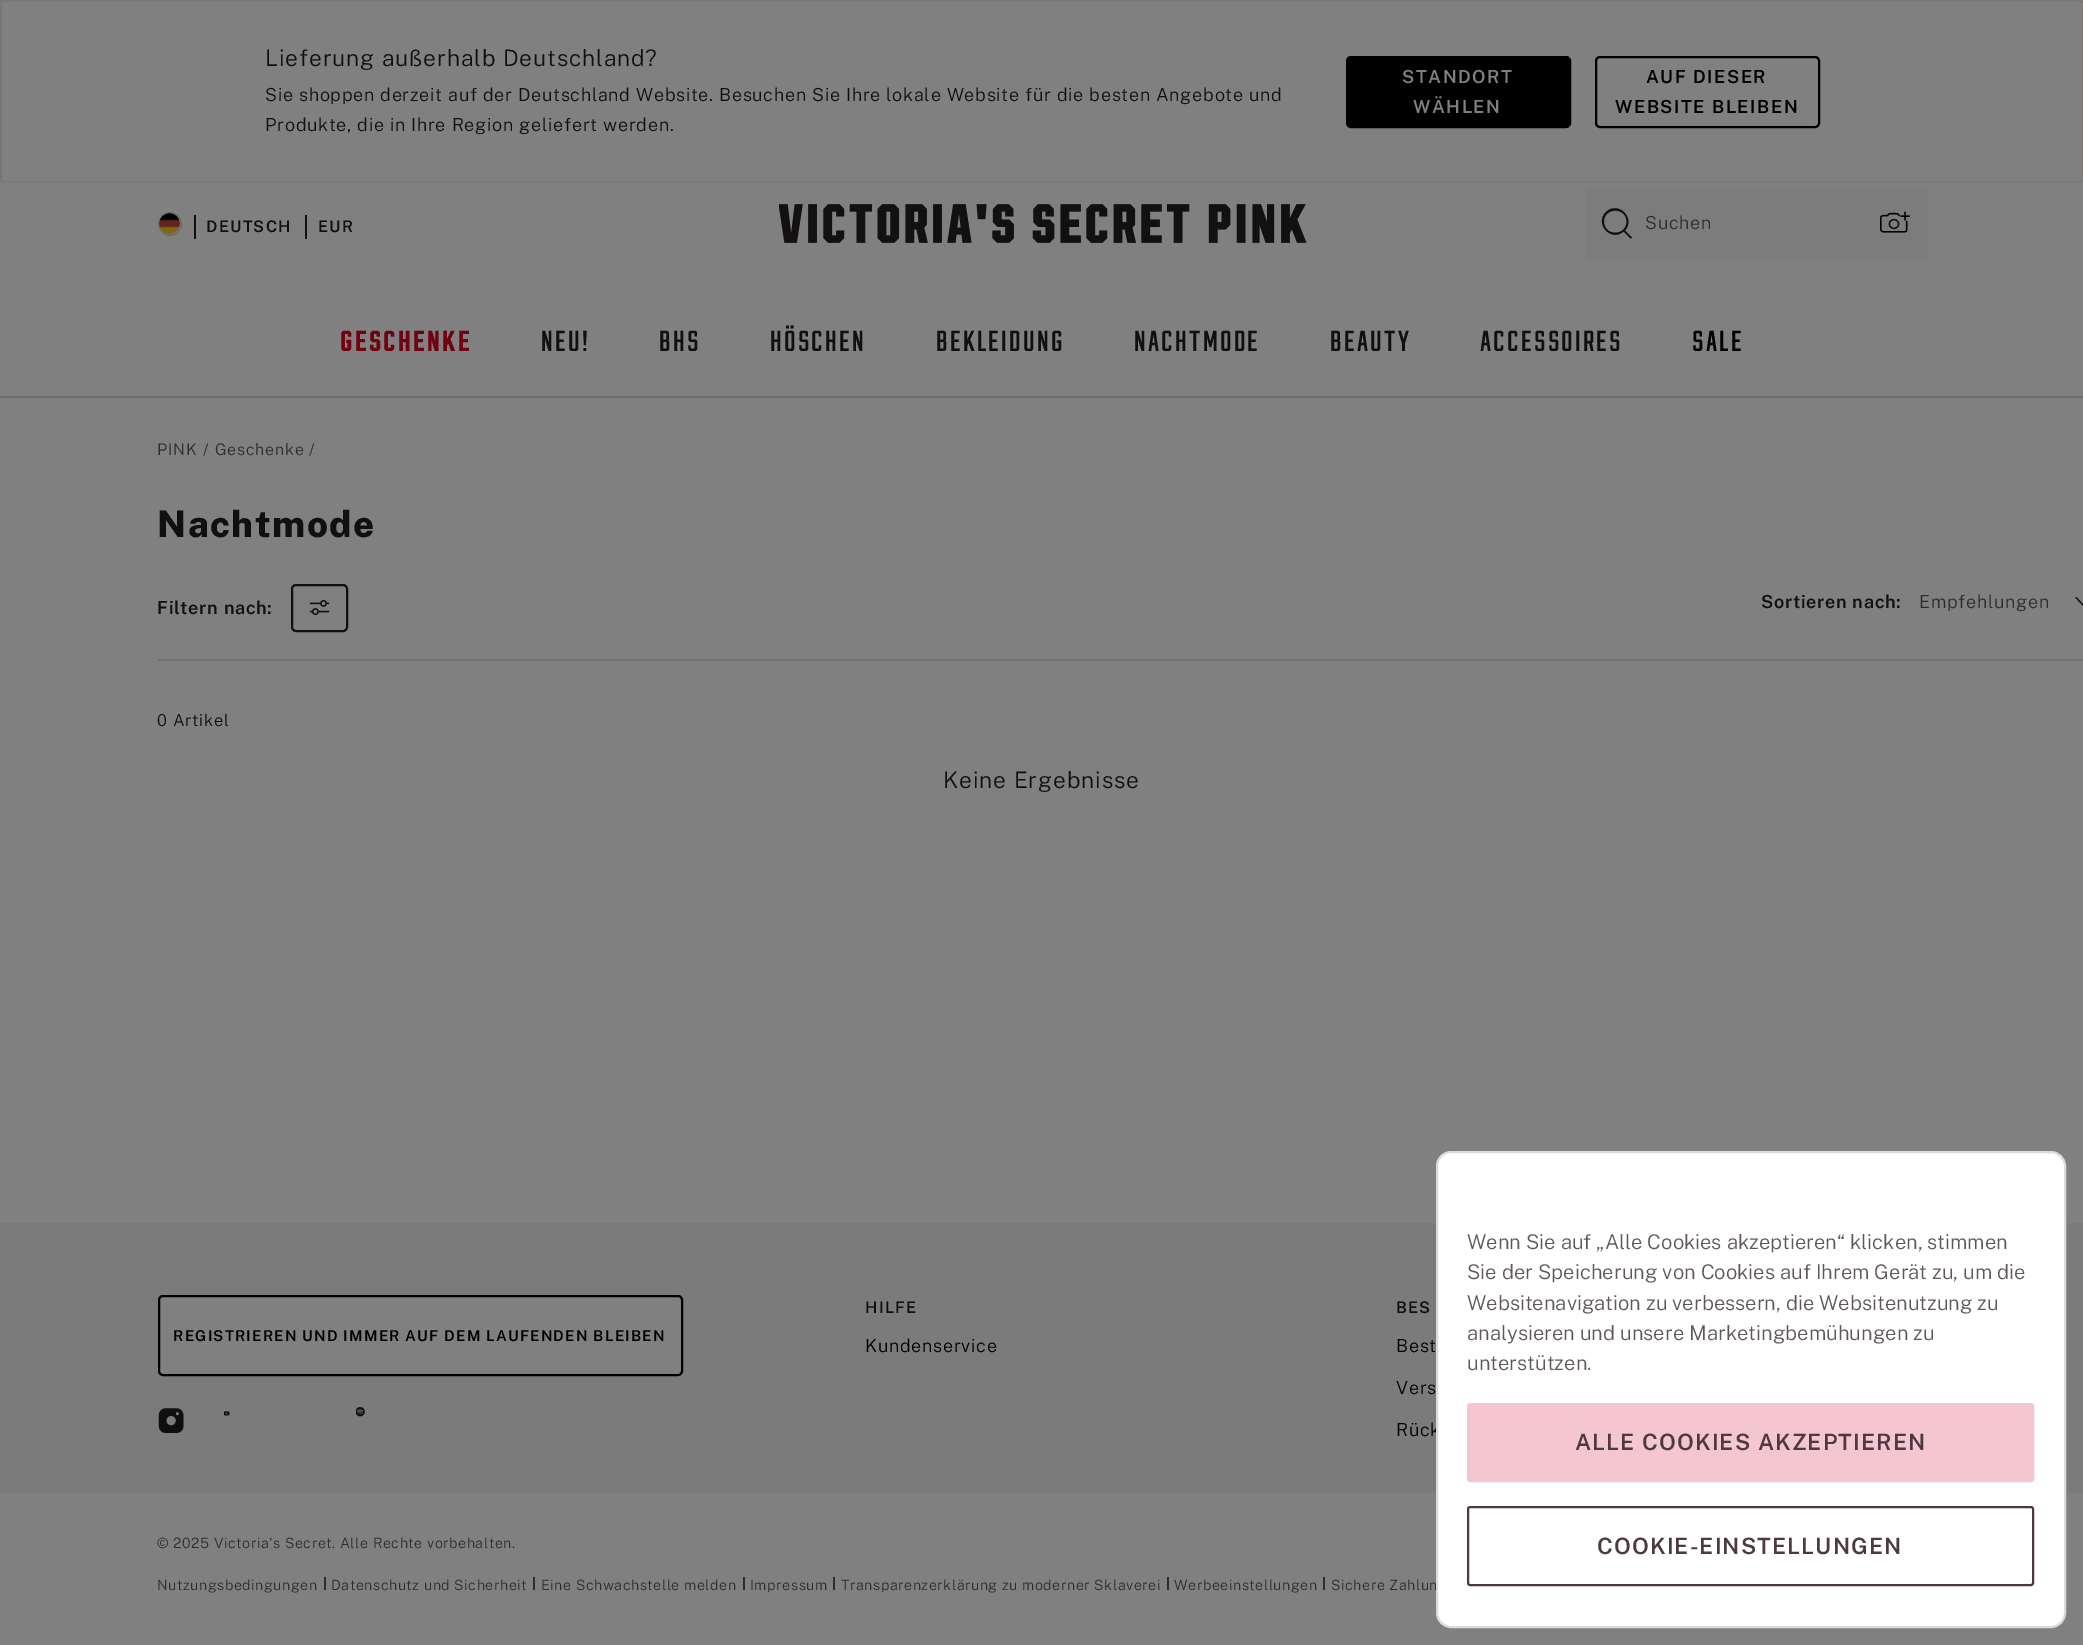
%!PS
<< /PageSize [2083 1645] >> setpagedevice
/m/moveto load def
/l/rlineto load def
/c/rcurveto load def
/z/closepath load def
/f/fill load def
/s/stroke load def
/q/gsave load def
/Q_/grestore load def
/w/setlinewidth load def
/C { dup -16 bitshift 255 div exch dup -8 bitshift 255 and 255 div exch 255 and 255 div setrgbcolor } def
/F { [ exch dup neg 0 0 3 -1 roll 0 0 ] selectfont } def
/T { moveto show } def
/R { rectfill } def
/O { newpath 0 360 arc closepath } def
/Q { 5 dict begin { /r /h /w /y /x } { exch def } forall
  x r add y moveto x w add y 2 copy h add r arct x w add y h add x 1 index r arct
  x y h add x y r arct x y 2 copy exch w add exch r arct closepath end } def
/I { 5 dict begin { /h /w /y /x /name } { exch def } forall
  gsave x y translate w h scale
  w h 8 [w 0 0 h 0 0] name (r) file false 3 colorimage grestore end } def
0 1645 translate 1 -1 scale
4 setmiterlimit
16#808080 C
0 0 2083 1645 R
16#7D7174 C
0 0 2083 3 R
16#808080 C
0 0 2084 183 3 Q f
16#7B7B7B C
1.5 w
2082 181.5 m -1.5 .5 l -2077.5 0 l -1.5 -.5 l s
16#787675 C
1.5 181.5 m -.5 -1.5 l 0 -177 l 0 -1 1 -2 2 -2 c 2077.5 0 l 1 0 2 1 2.5 2 c 0 177 l -1 1.5 l s
/PublicSans-Light 22.75 F
16#110F0F C
265 66 m .9 0 (Lieferung außerhalb Deutschland?) ashow
/PublicSans-Light 18 F
265 101 m .72 0 (Sie shoppen derzeit auf der Deutschland Website. Besuchen Sie Ihre lokale Website für die besten Angebote und) ashow
265 131 m .72 0 (Produkte, die in Ihre Region geliefert werden.) ashow
16#000000 C
1347 57 223 70 4 Q q f Q_
2 w
s
/PublicSans-SemiBold 18 F
16#808080 C
1402 83 m 1.5 0 (STANDORT) ashow
1413 113 m 1.5 0 (WÄHLEN) ashow
16#000000 C
1596 57 223 70 4 Q s
1646 83 m 1.5 0 (AUF DIESER) ashow
1615 113 m 1.5 0 (WEBSITE BLEIBEN) ashow
16#706D6B C
170 224 11 O s
(1.rgb) 159 213 21 21 I
16#110F0F C
194 215 2 24 R
/PublicSans-SemiBold 16 F
206 232 m 1.25 0 (DEUTSCH) ashow
305 215 2 24 R
318 232 m 1.25 0 (EUR) ashow
(2.rgb) 779 204 528 39 I
16#7D7C7D C
1586 188 342 72 3 Q f
16#110F0F C
1626.5 221.5 m 0 15 -22.5 15 -22.5 0 c 0 -14.5 22.5 -14.5 22.5 0 c z 1623.5 231.5 m -12.5 11 -29.5 -8 -17.5 -19.5 c 12 -11.5 30 6 19 18.5 c 7 7 l -1.5 1 l z eofill
/PublicSans-Light 18 F
16#302C2C C
1645 229 m .72 0 (Suchen) ashow
(3.rgb) 1880 211 30 22 I
/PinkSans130-Regular 29 F
16#71010E C
340 351 m 2.25 0 (GESCHENKE) ashow
/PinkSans-Medium 29 F
16#110F0F C
541 351 m 2.25 0 (NEU!) ashow
659 351 m 2.25 0 (BHS) ashow
770 351 m 2.25 0 (HÖSCHEN) ashow
936 351 m 2.25 0 (BEKLEIDUNG) ashow
1134 351 m 2.25 0 (NACHTMODE) ashow
1330 351 m 2.25 0 (BEAUTY) ashow
1480 351 m 2.25 0 (ACCESSOIRES) ashow
16#000000 C
1692 351 m 2.25 0 (SALE) ashow
16#706D6B C
0 396 2083 2 R
/PublicSans-Light 16 F
16#302C2C C
157 455 m .75 0 (PINK) ashow
203 455 m .75 0 (/) ashow
215 455 m .75 0 (Geschenke) ashow
309 455 m .75 0 (/) ashow
/PublicSans-ExtraBold 36.5 F
16#110F0F C
157 537 m 1.5 0 (Nachtmode) ashow
16#747270 C
158 659 1925 2 R
/PublicSans-SemiBold 18 F
16#110F0F C
157 614 m .72 0 (Filtern nach:) ashow
292 585 55 46 4 Q s
(4.rgb) 309 599 21 17 I
1761 608 m .72 0 (Sortieren nach:) ashow
/PublicSans-Light 18 F
16#302C2C C
1919 608 m .72 0 (Empfehlungen) ashow
16#110F0F C
1.2 w
1 setlinecap
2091 597.5 m -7.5 8 l -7.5 -8 l s
/PublicSans-Light 16.5 F
157 726 m .75 0 (0 Artikel) ashow
/PublicSans-Light 22.75 F
943 788 m .9 0 (Keine Ergebnisse) ashow
16#7B7B7B C
0 1223 2083 270 R
16#808080 C
159 1296 523 79 4 Q q f Q_
16#000000 C
2 w
0 setlinecap
s
/PublicSans-SemiBold 15 F
173 1341 m 1.2 0 (REGISTRIEREN UND IMMER AUF DEM LAUFENDEN BLEIBEN) ashow
(5.rgb) 158 1408 26 25 I
(6.rgb) 224 1411 6 5 I
(7.rgb) 356 1407 9 10 I
/PublicSans-SemiBold 16 F
16#110F0F C
865 1313 m 1.25 0 (HILFE) ashow
/PublicSans-Light 18 F
16#000000 C
865 1352 m .72 0 (Kundenservice) ashow
/PublicSans-SemiBold 16 F
16#110F0F C
1396 1313 m 1.25 0 (BES) ashow
/PublicSans-Light 18 F
16#000000 C
1396 1352 m .72 0 (Best) ashow
1396 1394 m .72 0 (Vers) ashow
1396 1436 m .72 0 (Rück) ashow
/PublicSans-Light 14.25 F
16#302C2C C
157 1548 m .55 0 (© 2025 Victoria's Secret. Alle Rechte vorbehalten.) ashow
157 1590 m .55 0 (Nutzungsbedingungen) ashow
324 1577 2 13 R
331 1590 m .55 0 (Datenschutz und Sicherheit) ashow
533 1577 2 13 R
541 1590 m .55 0 (Eine Schwachstelle melden) ashow
743 1577 2 13 R
750 1590 m .55 0 (Impressum) ashow
833 1577 2 13 R
841 1590 m .55 0 (Transparenzerklärung zu moderner Sklaverei) ashow
1167 1577 2 13 R
1174 1590 m .55 0 (Werbeeinstellungen) ashow
1323 1577 2 13 R
1331 1590 m .55 0 (Sichere Zahlun) ashow
16#FFFFFF C
1437 1152 628 475 14 Q q f Q_
16#E0DAD5 C
s
/PublicSans-Light 20.25 F
16#605858 C
(Wenn Sie auf „Alle Cookies akzeptieren“ klicken, stimmen) 1467 1249 T
(Sie der Speicherung von Cookies auf Ihrem Gerät zu, um die) 1467 1279 T
(Websitenavigation zu verbessern, die Websitenutzung zu) 1467 1310 T
(analysieren und unsere Marketingbemühungen zu) 1467 1340 T
(unterstützen.) 1467 1370 T
16#F4C6CF C
1468 1404 565 77 2 Q q f Q_
s
/PublicSans-SemiBold 22.5 F
16#4E3844 C
1575 1450 m 1.1 0 (ALLE COOKIES AKZEPTIEREN) ashow
1468 1507 565 78 2 Q s
1597 1554 m 1.1 0 (COOKIE-EINSTELLUNGEN) ashow
showpage
